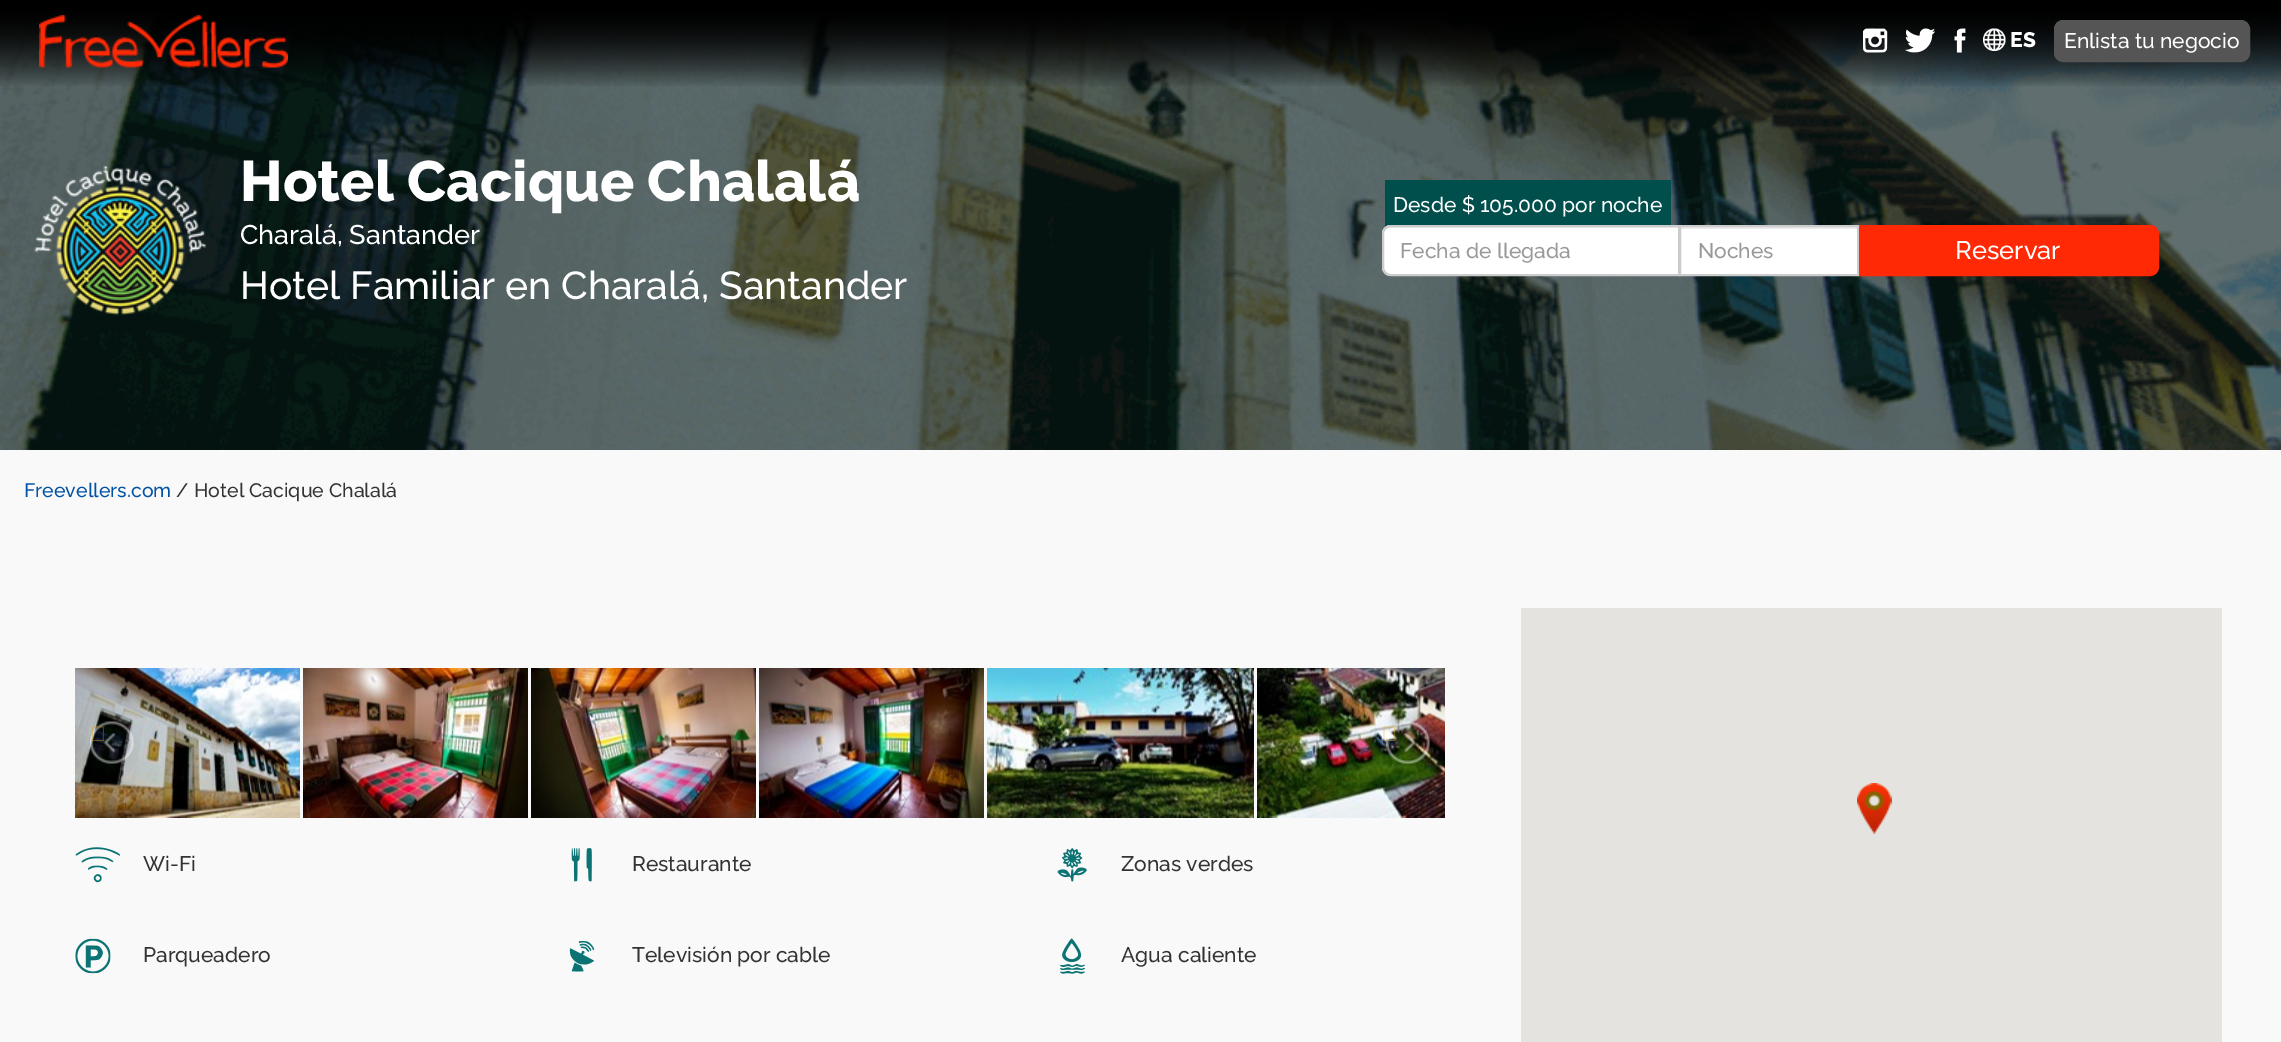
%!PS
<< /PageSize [2281 1042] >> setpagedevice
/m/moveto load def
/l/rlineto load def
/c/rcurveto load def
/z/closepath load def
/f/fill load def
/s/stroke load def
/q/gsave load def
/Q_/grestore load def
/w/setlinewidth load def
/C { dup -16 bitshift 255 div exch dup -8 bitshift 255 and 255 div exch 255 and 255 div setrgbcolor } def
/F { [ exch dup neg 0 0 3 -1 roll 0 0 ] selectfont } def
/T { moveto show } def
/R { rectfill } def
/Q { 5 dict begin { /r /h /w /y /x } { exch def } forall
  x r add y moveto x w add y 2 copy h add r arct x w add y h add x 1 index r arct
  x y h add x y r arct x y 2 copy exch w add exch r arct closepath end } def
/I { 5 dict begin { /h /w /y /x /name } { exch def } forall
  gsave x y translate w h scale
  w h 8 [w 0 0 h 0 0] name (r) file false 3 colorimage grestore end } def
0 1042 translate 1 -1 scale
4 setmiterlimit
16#F9F9F9 C
0 0 2281 1042 R
(7.rgb) 0 9 2281 441 I
(1.rgb) 0 0 2281 86 I
(2.rgb) 39 15 249 53 I
(3.rgb) 1863 28 25 25 I
(4.rgb) 1905 28 30 25 I
(5.rgb) 1954 28 12 25 I
(6.rgb) 1983 28 23 23 I
/Raleway-ExtraBold 21 F
16#FFFFFF C
(ES) 2010 47 T
16#555555 C
2055 21 194 40 8 Q q f Q_
2 w
s
/Raleway-Medium 21 F
16#FFFFFF C
(Enlista tu negocio) 2064 48 T
(8.rgb) 34 165 173 151 I
/Raleway-ExtraBold 57 F
(Hotel Cacique Chalalá) 240 201 T
/Raleway-Medium 27 F
(Charalá, Santander) 240 244 T
/Raleway-Medium 39 F
(Hotel Familiar en Charalá, Santander) 240 299 T
16#004F4D C
1385 180 286 48 R
/Raleway-Medium 21 F
16#FFFFFF C
(Desde $ 105.000 por noche) 1393 212 T
1391 225 m 289 0 l 0 51 l -289 0 l -5 0 -9 -4 -9 -9 c 0 -33 l 0 -5 4 -9 9 -9 c z f
16#ECECEC C
1390 228 m 288 0 l 0 47 l 1 0 l 0 -48 l -290 0 l -4 1 -6 5 -6 9 c 0 -5 3 -8 7 -8 c z f
16#CCCCCC C
1391 226 m 288 0 l 0 49 l -288 0 l -4.5 0 -8 -3.5 -8 -8 c 0 -33 l 0 -4.5 3.5 -8 8 -8 c z s
16#999999 C
(Fecha de llegada) 1400 258 T
16#FFFFFF C
1681 229 176 45 R
16#ECECEC C
1680 227 177 2 R
16#CCCCCC C
1680 226 178 49 rectstroke
16#999999 C
(Noches) 1698 258 T
16#FF2906 C
1860 226 m 290 0 l 4.5 0 8 3.5 8 8 c 0 33 l 0 4.5 -3.5 8 -8 8 c -290 0 l z q f Q_
s
/Raleway-Medium 25.5 F
16#FFFFFF C
(Reservar) 1955 259 T
/Raleway-Medium 19.5 F
16#0052A5 C
(Freevellers.com) 24 497 T
16#333333 C
(/) 176 497 T
(Hotel Cacique Chalalá) 194 497 T
(9.rgb) 75 668 225 150 I
(10.rgb) 303 668 225 150 I
(11.rgb) 531 668 225 150 I
(12.rgb) 759 668 225 150 I
(13.rgb) 987 668 267 150 I
(14.rgb) 1257 668 188 150 I
(15.rgb) 90 721 44 43 I
(16.rgb) 92 726 12 15 I
(17.rgb) 1385 721 45 43 I
(18.rgb) 1383 726 13 15 I
(19.rgb) 75 847 46 36 I
/Raleway-Medium 21 F
(Wi-Fi) 143 871 T
(20.rgb) 571 848 21 34 I
(Restaurante) 632 871 T
(21.rgb) 1057 848 30 34 I
(Zonas verdes) 1121 871 T
(22.rgb) 75 938 36 36 I
(Parqueadero) 143 962 T
(23.rgb) 569 941 26 31 I
(Televisión por cable) 632 962 T
(24.rgb) 1060 938 25 36 I
(Agua caliente) 1121 962 T
16#E5E3DF C
1521 608 701 434 R
(25.rgb) 1857 783 35 51 I
showpage
